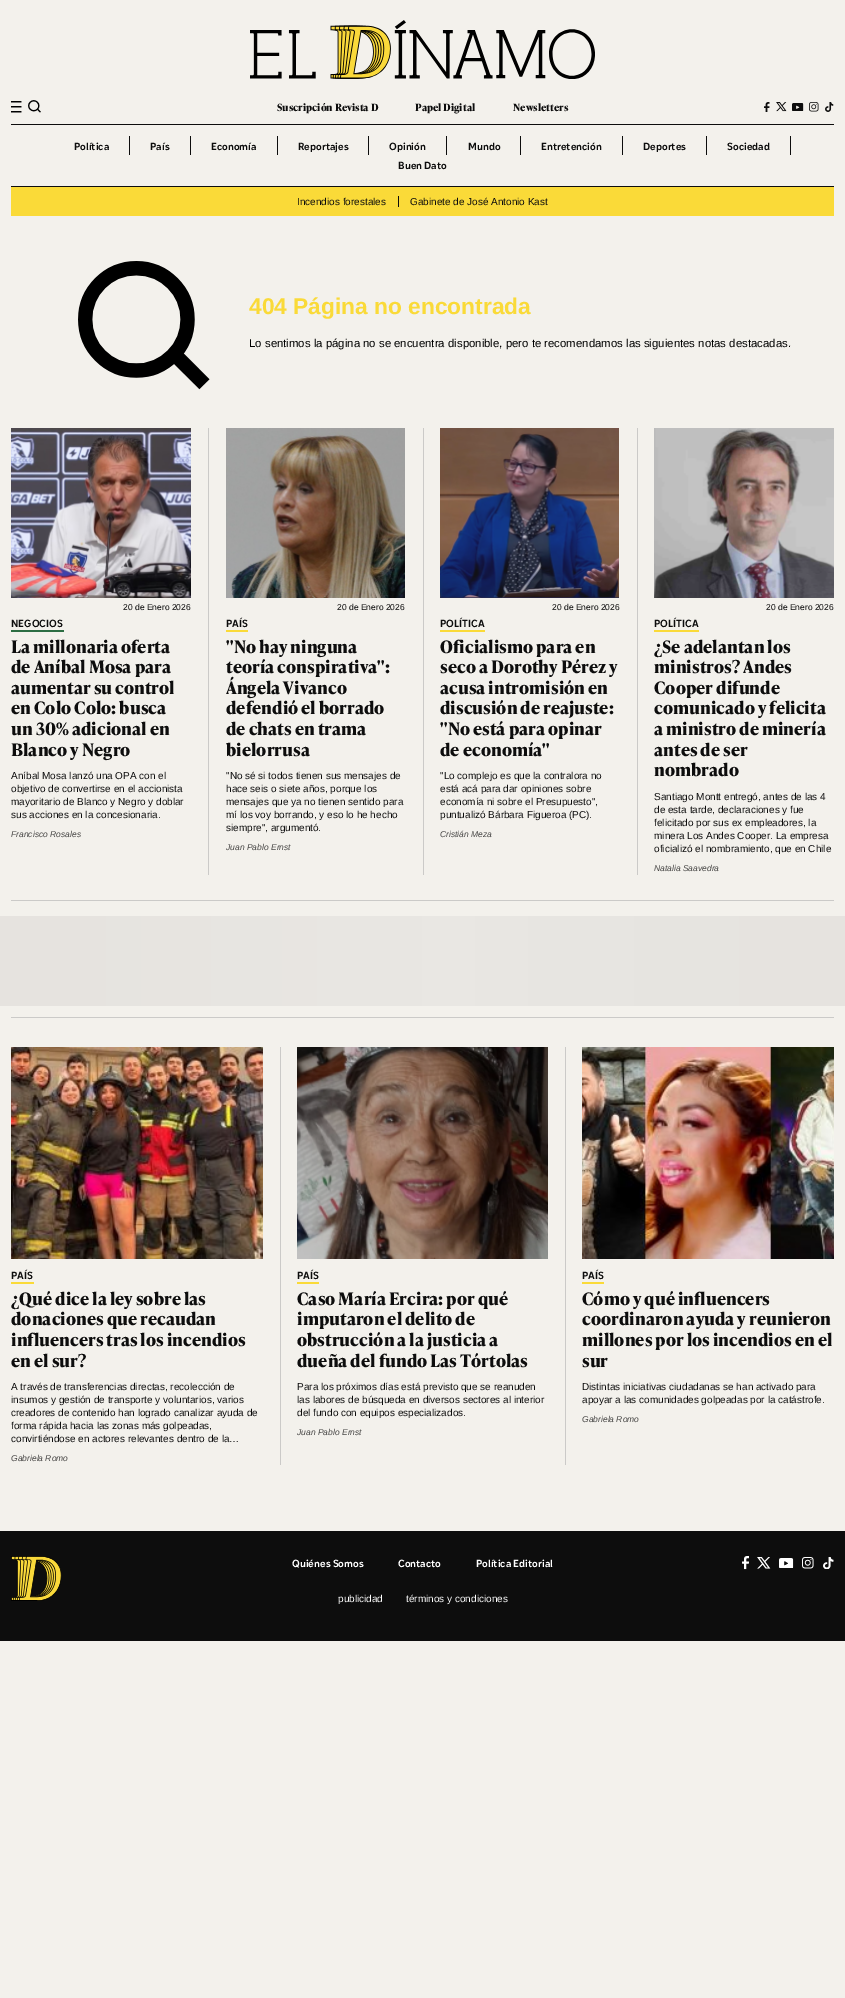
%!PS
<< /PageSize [845 1998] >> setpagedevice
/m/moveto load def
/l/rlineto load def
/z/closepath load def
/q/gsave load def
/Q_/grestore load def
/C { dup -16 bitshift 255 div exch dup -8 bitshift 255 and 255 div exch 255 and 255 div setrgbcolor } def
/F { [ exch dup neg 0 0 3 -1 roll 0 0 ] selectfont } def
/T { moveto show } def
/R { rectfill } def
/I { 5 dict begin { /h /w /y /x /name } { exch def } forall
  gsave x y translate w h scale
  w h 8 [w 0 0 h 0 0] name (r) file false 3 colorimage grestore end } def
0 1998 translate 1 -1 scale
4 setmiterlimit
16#F3F1EC C
0 0 845 1998 R
(1.rgb) 250 20 345 59 I
(2.rgb) 11 101 11 12 I
(3.rgb) 28 100 13 13 I
/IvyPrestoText-Bold 10 F
16#0D0D0D C
(Suscripción Revista D) 277 111 T
(Papel Digital) 415 111 T
(Newsletters) 513 111 T
(4.rgb) 764 102 6 10 I
(5.rgb) 776 102 11 10 I
(6.rgb) 792 103 12 8 I
(7.rgb) 809 102 10 10 I
(8.rgb) 825 102 9 10 I
11 124 823 1 R
11 186 823 1 R
129 136 1 19 R
/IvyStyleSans-SemiBold 10 F
(Política) 74 150 T
190 136 1 19 R
(País) 150 150 T
277 136 1 19 R
(Economía) 211 150 T
368 136 1 19 R
(Reportajes) 298 150 T
446 136 1 19 R
(Opinión) 389 150 T
520 136 1 19 R
(Mundo) 468 150 T
622 136 1 19 R
(Entretención) 541 150 T
706 136 1 19 R
(Deportes) 643 150 T
790 136 1 19 R
(Sociedad) 727 150 T
(Buen Dato) 398 169 T
16#FADA38 C
11 187 823 29 R
16#0D0D0D C
398 196 1 11 R
/LiberationSans-Regular 10 F
(Incendios forestales) 297 205 T
(Gabinete de José Antonio Kast) 410 205 T
(9.rgb) 78 261 132 129 I
/LiberationSans-Bold 22.75 F
16#FADA38 C
(404 Página no encontrada) 249 314 T
/LiberationSans-Regular 11.4 F
16#000000 C
(Lo sentimos la página no se encuentra disponible, pero te recomendamos las siguientes notas destacadas.) 249 347 T
(10.rgb) 11 428 180 170 I
16#CBCAC8 C
208 428 1 447 R
/LiberationSans-Regular 8.5 F
16#0D0D0D C
(20 de Enero 2026) 123 610 T
16#2C6D43 C
11 630 53 2 R
/IvyStyleSans-SemiBold 10 F
16#0D0D0D C
(NEGOCIOS) 11 627 T
/IvyPrestoText-Bold 17.1 F
(La millonaria oferta) 11 653 T
(de Aníbal Mosa para) 11 673 T
(aumentar su control) 11 694 T
(en Colo Colo: busca) 11 714 T
(un 30% adicional en) 11 735 T
(Blanco y Negro) 11 756 T
/LiberationSans-Regular 10 F
(Aníbal Mosa lanzó una OPA con el) 11 779 T
(objetivo de convertirse en el accionista) 11 792 T
(mayoritario de Blanco y Negro y doblar) 11 805 T
(sus acciones en la concesionaria.) 11 818 T
/LiberationSans-Italic 8.5 F
16#474645 C
(Francisco Rosales) 11 837 T
(11.rgb) 226 428 179 170 I
16#CBCAC8 C
423 428 1 447 R
/LiberationSans-Regular 8.5 F
16#0D0D0D C
(20 de Enero 2026) 337 610 T
16#FADA38 C
226 630 22 2 R
/IvyStyleSans-SemiBold 10 F
16#0D0D0D C
(PAÍS) 226 627 T
/IvyPrestoText-Bold 17.1 F
("No hay ninguna) 226 653 T
(teoría conspirativa":) 226 673 T
(Ángela Vivanco) 226 694 T
(defendió el borrado) 226 714 T
(de chats en trama) 226 735 T
(bielorrusa) 226 756 T
/LiberationSans-Regular 10 F
("No sé si todos tienen sus mensajes de) 226 779 T
(hace seis o siete años, porque los) 226 792 T
(mensajes que ya no tienen sentido para) 226 805 T
(mí los voy borrando, y eso lo he hecho) 226 818 T
(siempre", argumentó.) 226 831 T
/LiberationSans-Italic 8.5 F
16#474645 C
(Juan Pablo Ernst) 226 850 T
(12.rgb) 440 428 179 170 I
16#CBCAC8 C
637 428 1 447 R
/LiberationSans-Regular 8.5 F
16#0D0D0D C
(20 de Enero 2026) 552 610 T
16#FADA38 C
440 630 45 2 R
/IvyStyleSans-SemiBold 10 F
16#0D0D0D C
(POLÍTICA) 440 627 T
/IvyPrestoText-Bold 17.1 F
(Oficialismo para en) 440 653 T
(seco a Dorothy Pérez y) 440 673 T
(acusa intromisión en) 440 694 T
(discusión de reajuste:) 440 714 T
("No está para opinar) 440 735 T
(de economía") 440 756 T
/LiberationSans-Regular 10 F
("Lo complejo es que la contralora no) 440 779 T
(está acá para dar opiniones sobre) 440 792 T
(economía ni sobre el Presupuesto",) 440 805 T
(puntualizó Bárbara Figueroa \(PC\).) 440 818 T
/LiberationSans-Italic 8.5 F
16#474645 C
(Cristián Meza) 440 837 T
(13.rgb) 654 428 180 170 I
/LiberationSans-Regular 8.5 F
16#0D0D0D C
(20 de Enero 2026) 766 610 T
16#FADA38 C
654 630 45 2 R
/IvyStyleSans-SemiBold 10 F
16#0D0D0D C
(POLÍTICA) 654 627 T
/IvyPrestoText-Bold 17.1 F
(¿Se adelantan los) 654 653 T
(ministros? Andes) 654 673 T
(Cooper difunde) 654 694 T
(comunicado y felicita) 654 714 T
(a ministro de minería) 654 735 T
(antes de ser) 654 756 T
(nombrado) 654 776 T
/LiberationSans-Regular 10 F
(Santiago Montt entregó, antes de las 4) 654 800 T
(de esta tarde, declaraciones y fue) 654 813 T
(felicitado por sus ex empleadores, la) 654 826 T
(minera Los Andes Cooper. La empresa) 654 839 T
(oficializó el nombramiento, que en Chile) 654 852 T
/LiberationSans-Italic 8.5 F
16#474645 C
(Natalia Saavedra) 654 871 T
16#CBCAC8 C
11 900 823 1 R
q 0 916 m 845 0 l 0 90 l -845 0 l z clip newpath
<< /ShadingType 2 /ColorSpace /DeviceRGB /Coords [-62 961 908 961] /Extend [true true] /Function << /FunctionType 3 /Domain [0 1] /Functions [<< /FunctionType 2 /Domain [0 1] /C0 [.898 .886 .871] /C1 [.914 .906 .89] /N 1 >> << /FunctionType 2 /Domain [0 1] /C0 [.914 .906 .89] /C1 [.898 .886 .871] /N 1 >>] /Bounds [.5] /Encode [0 1 0 1] >> >> shfill Q_
11 1017 823 1 R
(14.rgb) 11 1047 252 212 I
280 1047 1 418 R
16#FADA38 C
11 1282 23 2 R
/IvyStyleSans-SemiBold 10 F
16#0D0D0D C
(PAÍS) 11 1279 T
/IvyPrestoText-Bold 17.1 F
(¿Qué dice la ley sobre las) 11 1305 T
(donaciones que recaudan) 11 1325 T
(influencers tras los incendios) 11 1346 T
(en el sur?) 11 1367 T
/LiberationSans-Regular 10 F
(A través de transferencias directas, recolección de) 11 1390 T
(insumos y gestión de transporte y voluntarios, varios) 11 1403 T
(creadores de contenido han logrado canalizar ayuda de) 11 1416 T
(forma rápida hacia las zonas más golpeadas,) 11 1429 T
(convirtiéndose en actores relevantes dentro de la…) 11 1442 T
/LiberationSans-Italic 8.5 F
16#474645 C
(Gabriela Romo) 11 1461 T
(15.rgb) 297 1047 251 212 I
16#CBCAC8 C
565 1047 1 418 R
16#FADA38 C
297 1282 22 2 R
/IvyStyleSans-SemiBold 10 F
16#0D0D0D C
(PAÍS) 297 1279 T
/IvyPrestoText-Bold 17.1 F
(Caso María Ercira: por qué) 297 1305 T
(imputaron el delito de) 297 1325 T
(obstrucción a la justicia a) 297 1346 T
(dueña del fundo Las Tórtolas) 297 1367 T
/LiberationSans-Regular 10 F
(Para los próximos días está previsto que se reanuden) 297 1390 T
(las labores de búsqueda en diversos sectores al interior) 297 1403 T
(del fundo con equipos especializados.) 297 1416 T
/LiberationSans-Italic 8.5 F
16#474645 C
(Juan Pablo Ernst) 297 1435 T
(16.rgb) 582 1047 252 212 I
16#FADA38 C
582 1282 22 2 R
/IvyStyleSans-SemiBold 10 F
16#0D0D0D C
(PAÍS) 582 1279 T
/IvyPrestoText-Bold 17.1 F
(Cómo y qué influencers) 582 1305 T
(coordinaron ayuda y reunieron) 582 1325 T
(millones por los incendios en el) 582 1346 T
(sur) 582 1367 T
/LiberationSans-Regular 10 F
(Distintas iniciativas ciudadanas se han activado para) 582 1390 T
(apoyar a las comunidades golpeadas por la catástrofe.) 582 1403 T
/LiberationSans-Italic 8.5 F
16#474645 C
(Gabriela Romo) 582 1422 T
16#0D0D0D C
0 1531 845 110 R
(17.rgb) 11 1556 51 45 I
/IvyStyleSans-SemiBold 10 F
16#FFFFFF C
(Quiénes Somos) 292 1567 T
(Contacto) 398 1567 T
(Política Editorial) 476 1567 T
/LiberationSans-Regular 10 F
(publicidad) 338 1602 T
(términos y condiciones) 406 1602 T
(18.rgb) 742 1556 7 14 I
(19.rgb) 757 1557 14 12 I
(20.rgb) 779 1558 15 10 I
(21.rgb) 802 1557 12 12 I
(22.rgb) 823 1557 11 12 I
showpage
